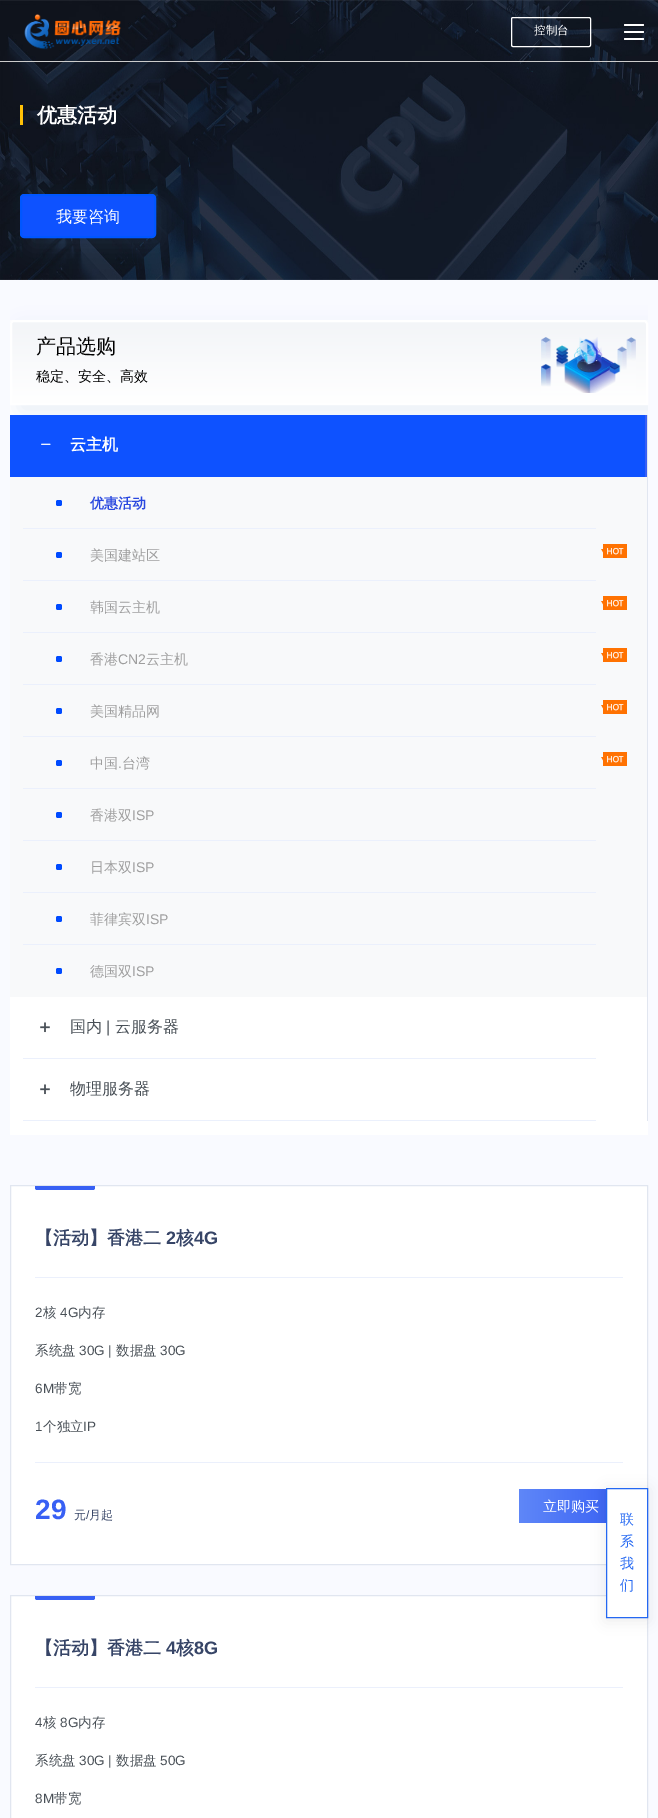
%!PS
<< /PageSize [658 1818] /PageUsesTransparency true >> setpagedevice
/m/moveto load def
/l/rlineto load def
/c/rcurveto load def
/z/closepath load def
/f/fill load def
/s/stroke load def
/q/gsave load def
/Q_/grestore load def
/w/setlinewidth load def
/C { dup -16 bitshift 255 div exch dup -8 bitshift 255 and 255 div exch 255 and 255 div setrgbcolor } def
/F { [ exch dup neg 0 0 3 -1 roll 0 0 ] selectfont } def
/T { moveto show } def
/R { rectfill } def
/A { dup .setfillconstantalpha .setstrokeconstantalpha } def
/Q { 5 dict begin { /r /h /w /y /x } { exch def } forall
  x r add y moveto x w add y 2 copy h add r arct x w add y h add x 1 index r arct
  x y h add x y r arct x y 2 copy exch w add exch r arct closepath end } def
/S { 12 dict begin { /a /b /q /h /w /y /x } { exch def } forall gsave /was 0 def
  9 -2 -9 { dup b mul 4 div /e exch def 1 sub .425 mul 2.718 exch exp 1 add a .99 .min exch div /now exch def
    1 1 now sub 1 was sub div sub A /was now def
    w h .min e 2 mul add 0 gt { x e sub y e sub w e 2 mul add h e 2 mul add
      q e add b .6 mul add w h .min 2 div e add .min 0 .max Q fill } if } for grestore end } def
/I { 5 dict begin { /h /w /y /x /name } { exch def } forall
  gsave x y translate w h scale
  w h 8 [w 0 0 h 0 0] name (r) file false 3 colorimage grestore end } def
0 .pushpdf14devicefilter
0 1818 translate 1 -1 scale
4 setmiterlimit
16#F9FAFF C
0 0 658 1818 R
(2.rgb) 0 0 658 280 I
16#CCCCCC C
0 61 658 1 R
(1.rgb) 24 14 97 36 I
16#FFFFFF C
511.5 17.5 79 29 1.5 Q s
/WenQuanYiZenHei-Medium 11.5 F
(控制台) 534 34 T
624 24 20 2 1 Q f
624 31 20 2 1 Q f
624 38 20 2 1 Q f
16#FFC107 C
20 105 3 20 R
/WenQuanYiZenHei-Bold 20 F
16#FFFFFF C
(优惠活动) 37 122 T
16#79ACFF C
28 202 136 44 4 10 .1 S
16#0E52FF C
21 195 134 42 3 Q q f Q_
16#0056FF C
2 w
s
/WenQuanYiZenHei-Medium 16 F
16#FFFFFF C
(我要咨询) 56 222 T
10 320 638 815 R
16#E1E6F0 C
647 415 1 706 R
q
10 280 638 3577 rectclip
16#3763AA C
18 328 638 85 4 10 .1 S
Q_
q 10 322 m 638 0 l 0 81 l -638 0 l z clip newpath
<< /ShadingType 2 /ColorSpace /DeviceRGB /Coords [329 403 329 322] /Extend [true true] /Function << /FunctionType 2 /Domain [0 1] /C0 [1 1 1] /C1 [.953 .961 .973] /N 1 >> >> shfill Q_
16#FFFFFF C
14 321 m 630 0 l 1.5 0 3 1.5 3 3 c 0 80 l -636 0 l 0 -80 l 0 -1.5 1.5 -3 3 -3 c z s
/WenQuanYiZenHei-Medium 20 F
16#000000 C
(产品选购) 36 353 T
(3.rgb) 541 337 95 56 I
/WenQuanYiZenHei-Medium 14 F
(稳定、安全、高效) 36 381 T
16#0E52FF C
10 415 635 62 R
16#3860F4 C
645 415 2 62 R
(4.rgb) 41 443 10 2 I
/WenQuanYiZenHei-Bold 16 F
16#FFFFFF C
(云主机) 70 450 T
16#F8F9FA C
10 477 637 520 R
16#004BFF C
56 500 6 6 2 Q f
/WenQuanYiZenHei-Bold 14 F
16#2948DF C
(优惠活动) 90 508 T
16#EBF0FC C
23 528 573 1 R
16#004BFF C
56 552 6 6 2 Q f
/WenQuanYiZenHei-Medium 14 F
16#9E9E9E C
(美国建站区) 90 560 T
(5.rgb) 601 544 26 14 I
16#EBF0FC C
23 580 573 1 R
16#004BFF C
56 604 6 6 2 Q f
16#9E9E9E C
(韩国云主机) 90 612 T
(5.rgb) 601 596 26 14 I
16#EBF0FC C
23 632 573 1 R
16#004BFF C
56 656 6 6 2 Q f
16#9E9E9E C
(香港) 90 664 T
/LiberationSans-Regular 14 F
(CN2) 118 664 T
/WenQuanYiZenHei-Medium 14 F
(云主机) 146 664 T
(5.rgb) 601 648 26 14 I
16#EBF0FC C
23 684 573 1 R
16#004BFF C
56 708 6 6 2 Q f
16#9E9E9E C
(美国精品网) 90 716 T
(5.rgb) 601 700 26 14 I
16#EBF0FC C
23 736 573 1 R
16#004BFF C
56 760 6 6 2 Q f
16#9E9E9E C
(中国) 90 768 T
/LiberationSans-Regular 14 F
(.) 118 768 T
/WenQuanYiZenHei-Medium 14 F
(台湾) 122 768 T
(5.rgb) 601 752 26 14 I
16#EBF0FC C
23 788 573 1 R
16#004BFF C
56 812 6 6 2 Q f
16#9E9E9E C
(香港双) 90 820 T
/LiberationSans-Regular 14 F
(ISP) 132 820 T
16#EBF0FC C
23 840 573 1 R
16#004BFF C
56 864 6 6 2 Q f
/WenQuanYiZenHei-Medium 14 F
16#9E9E9E C
(日本双) 90 872 T
/LiberationSans-Regular 14 F
(ISP) 132 872 T
16#EBF0FC C
23 892 573 1 R
16#004BFF C
56 916 6 6 2 Q f
/WenQuanYiZenHei-Medium 14 F
16#9E9E9E C
(菲律宾双) 90 924 T
/LiberationSans-Regular 14 F
(ISP) 146 924 T
16#EBF0FC C
23 944 573 1 R
16#004BFF C
56 968 6 6 2 Q f
/WenQuanYiZenHei-Medium 14 F
16#9E9E9E C
(德国双) 90 976 T
/LiberationSans-Regular 14 F
(ISP) 132 976 T
(6.rgb) 40 1022 10 11 I
/WenQuanYiZenHei-Medium 16 F
16#495057 C
(国内) 70 1032 T
/LiberationSans-Regular 16 F
(|) 106 1032 T
/WenQuanYiZenHei-Medium 16 F
(云服务器) 115 1032 T
16#EBF0FC C
23 1058 573 1 R
(6.rgb) 40 1084 10 11 I
16#495057 C
(物理服务器) 70 1094 T
16#EBF0FC C
23 1120 573 1 R
16#FFFFFF C
10.5 1185.5 m 637 0 l 0 379 l -637 0 l z q f Q_
16#E1E6F0 C
1 w
s
16#3860F4 C
35 1186 m 60 0 l 0 2 l 0 1 -1 2 -2 2 c -56 0 l -1 0 -2 -1 -2 -2 c z f
16#EBF0FC C
35 1277 588 1 R
/WenQuanYiZenHei-Bold 18 F
16#374567 C
(【活动】香港二) 35 1244 T
/LiberationSans-Bold 18 F
(2) 166 1244 T
/WenQuanYiZenHei-Bold 18 F
(核) 176 1244 T
/LiberationSans-Bold 18 F
(4G) 194 1244 T
/LiberationSans-Regular 13.5 F
16#495057 C
(2) 35 1317 T
/WenQuanYiZenHei-Medium 13.5 F
(核) 43 1317 T
/LiberationSans-Regular 13.5 F
(4G) 60 1317 T
/WenQuanYiZenHei-Medium 13.5 F
(内存) 78 1317 T
(系统盘) 35 1355 T
/LiberationSans-Regular 13.5 F
(30G |) 79 1355 T
/WenQuanYiZenHei-Medium 13.5 F
(数据盘) 116 1355 T
/LiberationSans-Regular 13.5 F
(30G) 160 1355 T
(6M) 35 1393 T
/WenQuanYiZenHei-Medium 13.5 F
(带宽) 54 1393 T
/LiberationSans-Regular 13.5 F
(1) 35 1431 T
/WenQuanYiZenHei-Medium 13.5 F
(个独立) 43 1431 T
/LiberationSans-Regular 13.5 F
(IP) 83 1431 T
16#EBF0FC C
35 1462 588 1 R
/LiberationSans-Bold 28 F
16#3860F4 C
(29) 35 1519 T
/WenQuanYiZenHei-Medium 12 F
16#374567 C
(元) 74 1519 T
/LiberationSans-Regular 12 F
(/) 86 1519 T
/WenQuanYiZenHei-Medium 12 F
(月起) 89 1519 T
q 519 1489 104 34 2 Q clip newpath
<< /ShadingType 2 /ColorSpace /DeviceRGB /Coords [519 1506 623 1506] /Extend [true true] /Function << /FunctionType 2 /Domain [0 1] /C0 [.373 .529 .973] /C1 [.22 .376 .957] /N 1 >> >> shfill Q_
/WenQuanYiZenHei-Medium 14 F
16#FFFFFF C
(立即购买) 543 1511 T
10.5 1595.5 m 637 0 l 0 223 l -637 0 l z q f Q_
16#E1E6F0 C
s
16#3860F4 C
35 1596 m 60 0 l 0 2 l 0 1 -1 2 -2 2 c -56 0 l -1 0 -2 -1 -2 -2 c z f
16#EBF0FC C
35 1687 588 1 R
/WenQuanYiZenHei-Bold 18 F
16#374567 C
(【活动】香港二) 35 1654 T
/LiberationSans-Bold 18 F
(4) 166 1654 T
/WenQuanYiZenHei-Bold 18 F
(核) 176 1654 T
/LiberationSans-Bold 18 F
(8G) 194 1654 T
/LiberationSans-Regular 13.5 F
16#495057 C
(4) 35 1727 T
/WenQuanYiZenHei-Medium 13.5 F
(核) 43 1727 T
/LiberationSans-Regular 13.5 F
(8G) 60 1727 T
/WenQuanYiZenHei-Medium 13.5 F
(内存) 78 1727 T
(系统盘) 35 1765 T
/LiberationSans-Regular 13.5 F
(30G |) 79 1765 T
/WenQuanYiZenHei-Medium 13.5 F
(数据盘) 116 1765 T
/LiberationSans-Regular 13.5 F
(50G) 160 1765 T
(8M) 35 1803 T
/WenQuanYiZenHei-Medium 13.5 F
(带宽) 54 1803 T
16#000000 C
606 1490 42 130 0 7 .08 S
16#FFFFFF C
606.5 1488.5 m 41 0 l 0 129 l -41 0 l z q f Q_
16#2468F2 C
s
/WenQuanYiZenHei-Medium 14 F
(联) 620 1524 T
(系) 620 1546 T
(我) 620 1568 T
(们) 620 1590 T
.poppdf14devicefilter showpage
